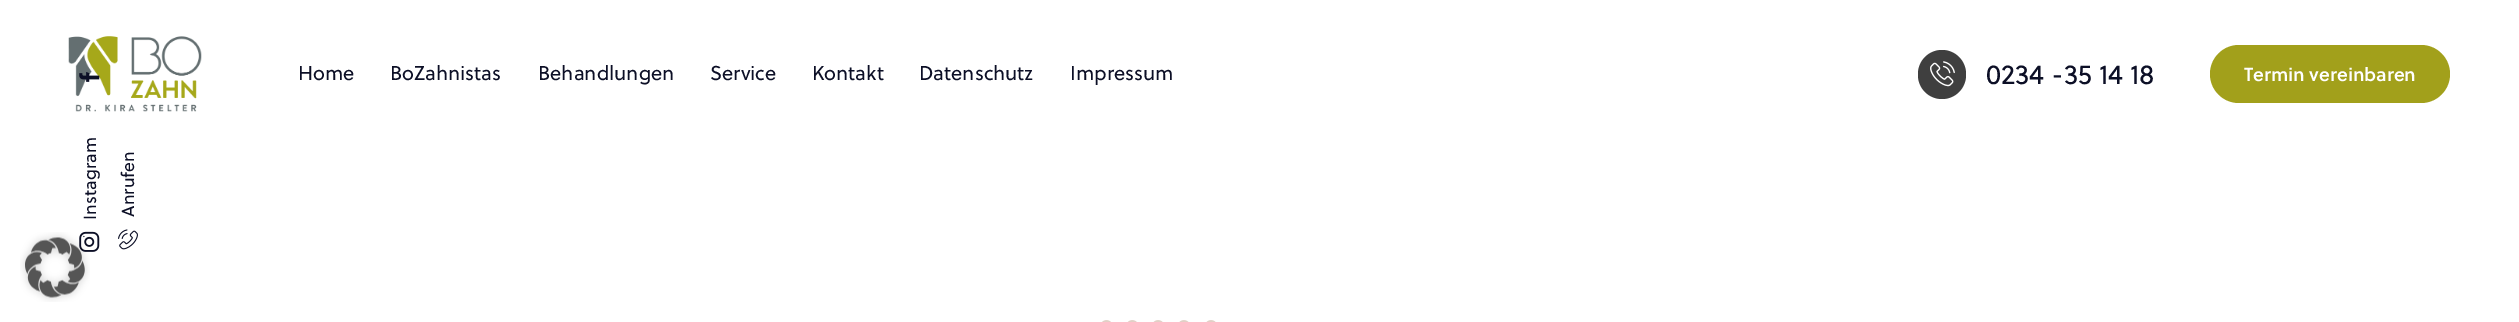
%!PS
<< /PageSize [2519 322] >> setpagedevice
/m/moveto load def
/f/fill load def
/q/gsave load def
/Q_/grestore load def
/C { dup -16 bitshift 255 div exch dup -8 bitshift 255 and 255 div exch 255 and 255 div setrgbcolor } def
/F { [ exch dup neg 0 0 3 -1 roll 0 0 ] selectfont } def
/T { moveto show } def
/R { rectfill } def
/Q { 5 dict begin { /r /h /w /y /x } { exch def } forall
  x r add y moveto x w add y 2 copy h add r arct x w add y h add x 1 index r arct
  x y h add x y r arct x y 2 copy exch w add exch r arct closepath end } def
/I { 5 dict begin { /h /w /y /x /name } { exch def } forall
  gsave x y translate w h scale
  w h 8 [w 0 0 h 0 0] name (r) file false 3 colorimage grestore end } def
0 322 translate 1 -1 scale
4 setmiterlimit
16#FFFFFF C
0 0 2519 322 R
(1.rgb) 68 36 134 76 I
/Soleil-Regular 20 F
16#0C0F26 C
(Home) 298 80 T
(BoZahnistas) 390 80 T
(Behandlungen) 538 80 T
(Service) 710 80 T
(Kontakt) 812 80 T
(Datenschutz) 919 80 T
(Impressum) 1070 80 T
16#3F3F3F C
1918 50 48 49 24 Q f
(2.rgb) 1930 61 25 26 I
/Soleil-Regular 27.5 F
16#0C0F26 C
(0234 -35 14 18) 1986 84 T
16#A2A01B C
2210 45 240 58 29 Q f
/Soleil-SemiBold 18.75 F
16#FFFFFF C
(Termin vereinbaren) 2244 81 T
(3.rgb) 1102 320 114 2 I
(4.rgb) 79 72 21 10 I
/Soleil-Regular 17.5 F
16#0C0F26 C
q 96 220 translate -90 rotate 0 0 m .1 0 (Instagram) ashow Q_
(5.rgb) 79 231 21 21 I
q 134 217 translate -90 rotate 0 0 m .1 0 (Anrufen) ashow Q_
(6.rgb) 118 229 20 21 I
(7.rgb) 20 232 70 70 I
showpage
